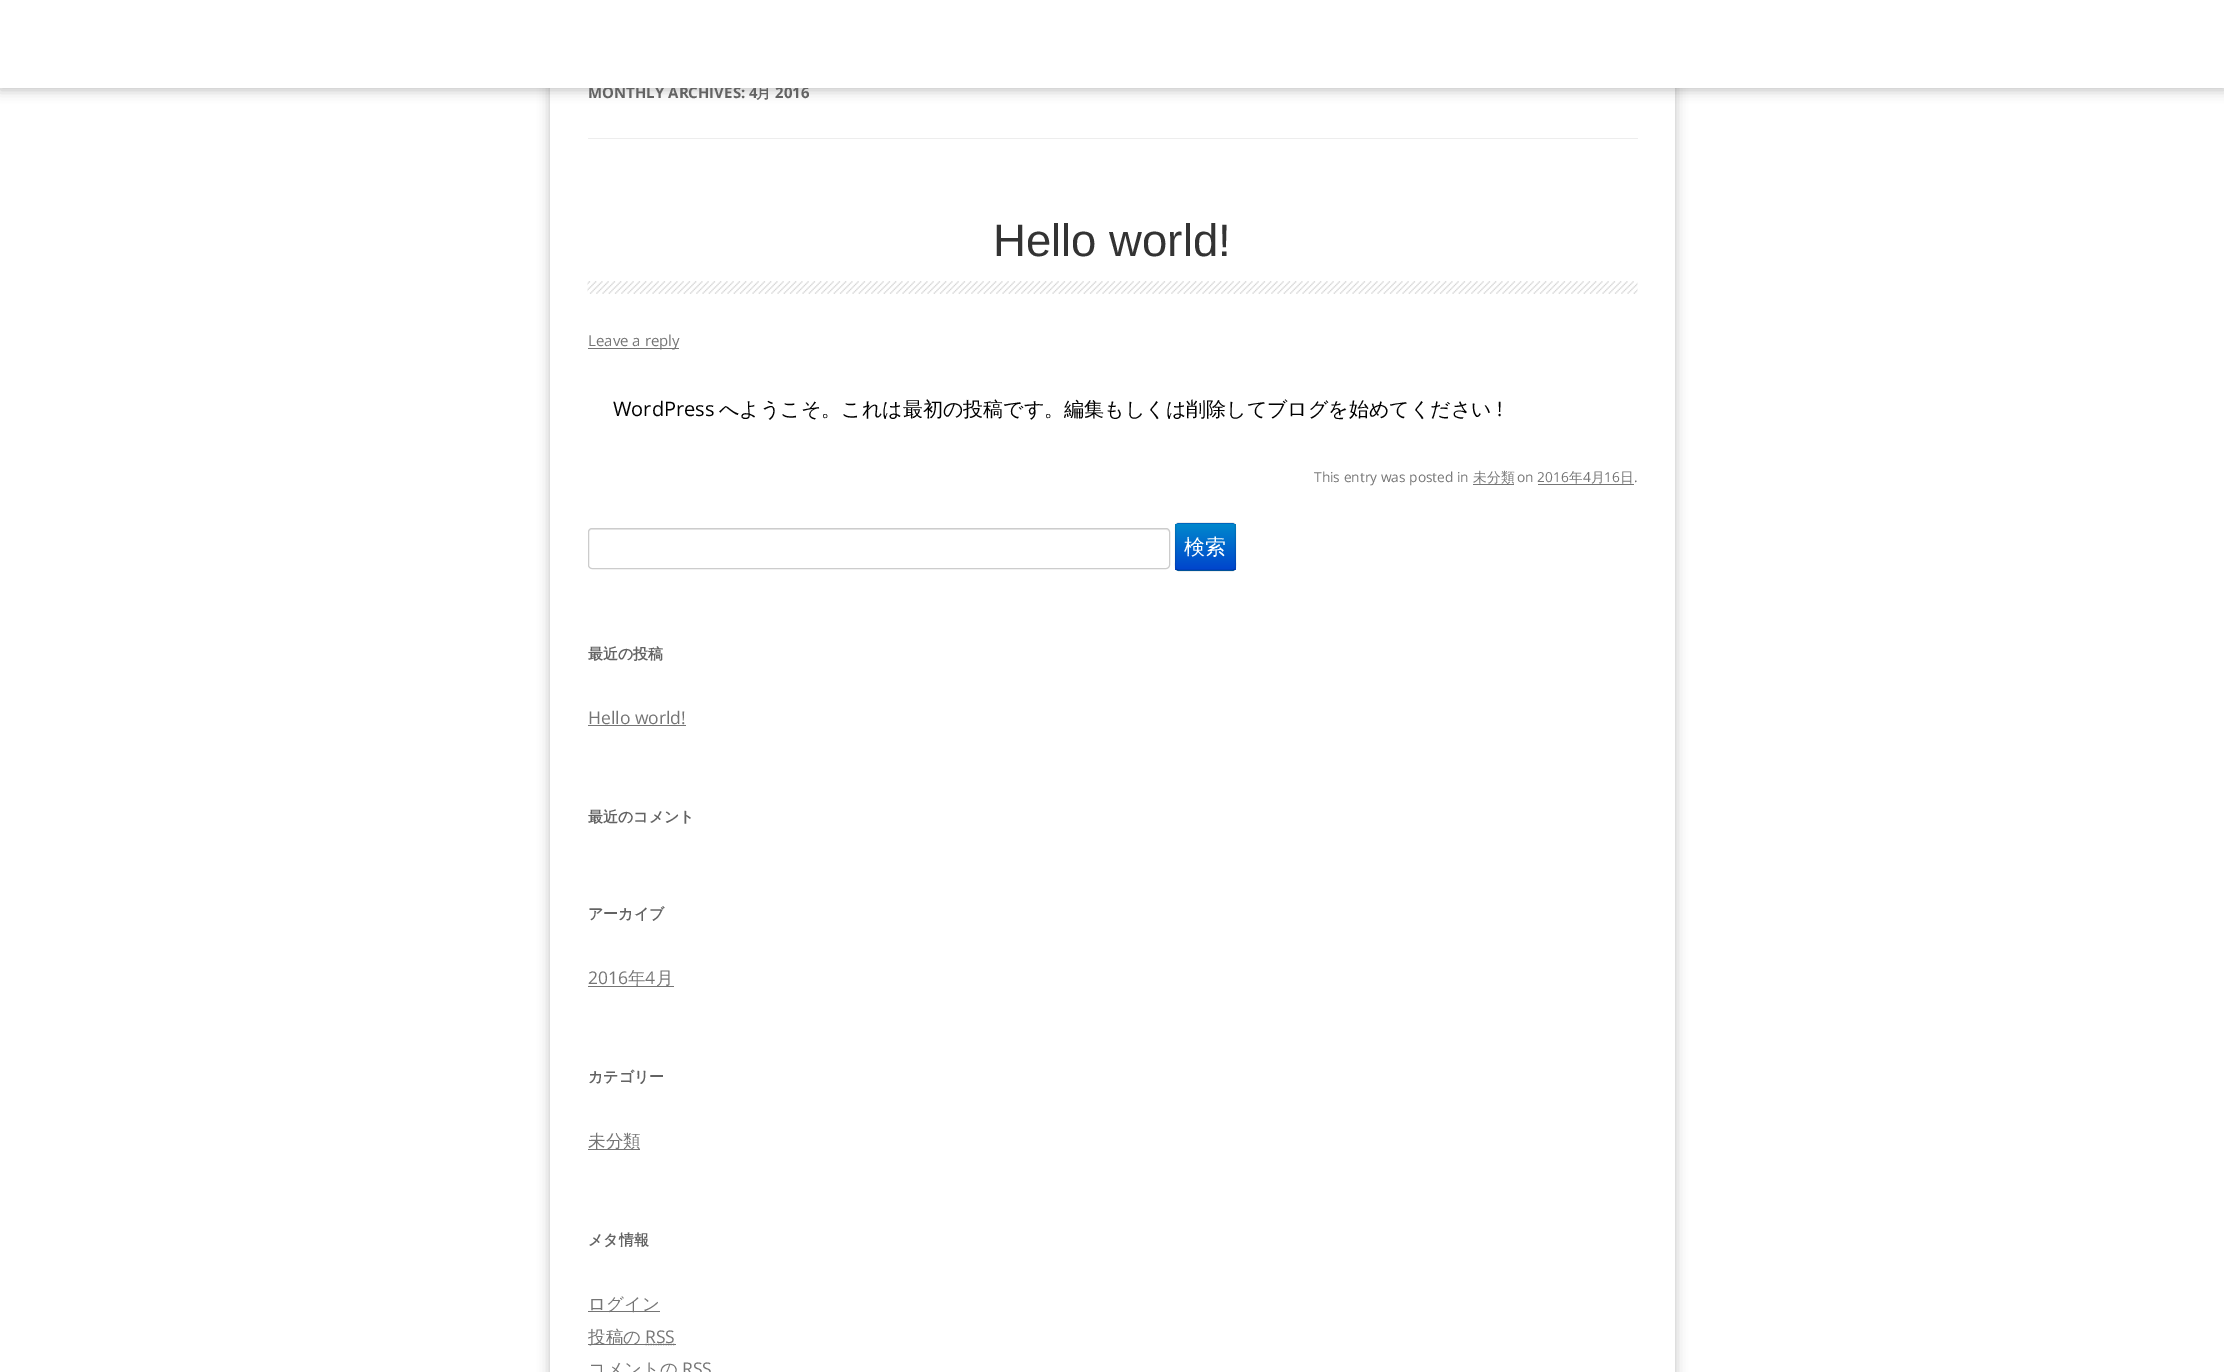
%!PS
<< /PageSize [2224 1372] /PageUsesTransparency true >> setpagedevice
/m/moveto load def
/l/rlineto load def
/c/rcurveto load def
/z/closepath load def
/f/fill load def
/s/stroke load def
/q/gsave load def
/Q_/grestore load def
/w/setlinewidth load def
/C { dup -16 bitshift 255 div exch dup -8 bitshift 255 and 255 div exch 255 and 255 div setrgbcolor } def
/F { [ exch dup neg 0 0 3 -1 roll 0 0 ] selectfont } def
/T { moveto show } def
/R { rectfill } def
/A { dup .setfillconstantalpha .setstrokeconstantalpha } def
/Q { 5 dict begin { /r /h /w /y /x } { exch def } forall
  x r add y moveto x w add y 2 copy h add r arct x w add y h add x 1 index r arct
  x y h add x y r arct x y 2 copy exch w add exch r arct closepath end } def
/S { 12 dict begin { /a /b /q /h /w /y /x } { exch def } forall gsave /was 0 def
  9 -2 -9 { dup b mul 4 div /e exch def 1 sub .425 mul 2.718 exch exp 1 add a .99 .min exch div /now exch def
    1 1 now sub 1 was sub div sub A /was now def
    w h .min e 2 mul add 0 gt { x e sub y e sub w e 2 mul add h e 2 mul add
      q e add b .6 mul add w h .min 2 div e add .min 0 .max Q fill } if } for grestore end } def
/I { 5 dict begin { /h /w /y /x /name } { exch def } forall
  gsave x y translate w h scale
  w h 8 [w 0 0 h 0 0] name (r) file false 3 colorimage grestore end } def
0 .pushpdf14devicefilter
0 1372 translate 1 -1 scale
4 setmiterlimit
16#FFFFFF C
0 0 2224 1372 R
16#000000 C
0 3 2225 87 0 6 .25 S
q
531 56 m 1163 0 l 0 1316 l -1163 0 l z 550 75 m 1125 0 l 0 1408 l -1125 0 l z eoclip newpath
550 75 1125 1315 0 6 .25 S
Q_
/OpenSans-Bold 15 F
16#636363 C
(MONTHLY ARCHIVES: 4) 588 98 T
/WenQuanYiZenHei-Bold 15 F
(月) 756 98 T
/OpenSans-Bold 15 F
(2016) 775 98 T
16#FFFFFF C
0 0 2224 88 R
16#EDEDED C
588 138 1050 1 R
(1.rgb) 587 281 1051 13 I
/LiberationSans-Regular 45.5 F
16#333333 C
(Hello world!) 993 256 T
16#757575 C
588 348 91 1 R
/OpenSans-Regular 15 F
(Leave a reply) 588 346 T
/OpenSans-Regular 20 F
16#000000 C
(WordPress) 613 416 T
/WenQuanYiZenHei-Medium 20 F
(へようこそ。これは最初の投稿です。編集もしくは削除してブログを始めてください) 719 416 T
/OpenSans-Regular 20 F
(!) 1497 416 T
/OpenSans-Regular 13.75 F
16#757575 C
(This entry was posted in) 1314 482 T
1473 484 41 1 R
/WenQuanYiZenHei-Medium 13.75 F
(未分類) 1473 482 T
/OpenSans-Regular 13.75 F
(on 2016) 1517 482 T
/WenQuanYiZenHei-Medium 13.75 F
(年) 1569 482 T
/OpenSans-Regular 13.75 F
(4) 1583 482 T
/WenQuanYiZenHei-Medium 13.75 F
(月) 1591 482 T
1538 484 96 1 R
/OpenSans-Regular 13.75 F
(16) 1604 482 T
/WenQuanYiZenHei-Medium 13.75 F
(日) 1620 482 T
/OpenSans-Regular 13.75 F
(.) 1634 482 T
16#ECECEC C
591 530 m 575 0 l 2 0 3 1 3 2 c 0 -2 -1 -3 -3 -3 c -574 0 l -2 0 -3 1 -3 3 c 0 -1 1 -2 2 -2 c z f
16#CCCCCC C
588.5 528.5 581 40 3.5 Q s
16#006DCC C
1175 523 61 48 4 Q f
q
1175 523 61 48 4 Q clip newpath
q 1175 524 m 61 0 l 0 46 l -61 0 l z clip newpath
<< /ShadingType 2 /ColorSpace /DeviceRGB /Coords [1206 524 1206 570] /Extend [true true] /Function << /FunctionType 2 /Domain [0 1] /C0 [0 .533 .8] /C1 [0 .267 .8] /N 1 >> >> shfill Q_
Q_
0.25 A
16#000000 C
1.2 w
1234.5 569.5 m -1.5 1 l -54.5 0 l -2 -1 l s
0.1 A
1176.5 569.5 m -2 -2 -1 -8 -1 -9 c 0 -27.5 l 0 -12 -.5 -10 12 -10 c 36 0 l 12.5 0 12 -2 12 10 c 0 27.5 l 0 1 1 7 -1 9 c s
/WenQuanYiZenHei-Medium 21 F
1 A
16#FFFFFF C
(検索) 1184 554 T
/WenQuanYiZenHei-Bold 15 F
16#636363 C
(最近の投稿) 588 659 T
/OpenSans-Regular 17.5 F
16#757575 C
(Hello world!) 588 724 T
588 725 98 1 R
/WenQuanYiZenHei-Bold 15 F
16#636363 C
(最近のコメント) 588 822 T
(アーカイブ) 588 919 T
/OpenSans-Regular 17.5 F
16#757575 C
(2016) 588 984 T
588 986 86 1 R
/WenQuanYiZenHei-Medium 17.5 F
(年) 628 984 T
/OpenSans-Regular 17.5 F
(4) 645 984 T
/WenQuanYiZenHei-Medium 17.5 F
(月) 656 984 T
/WenQuanYiZenHei-Bold 15 F
16#636363 C
(カテゴリー) 588 1082 T
16#757575 C
588 1149 52 1 R
/WenQuanYiZenHei-Medium 17.5 F
(未分類) 588 1147 T
/WenQuanYiZenHei-Bold 15 F
16#636363 C
(メタ情報) 588 1245 T
16#757575 C
588 1311 72 1 R
/WenQuanYiZenHei-Medium 17.5 F
(ログイン) 588 1310 T
588 1344 57 1 R
(投稿の) 588 1343 T
[1.25 1.25] 0 setdash
645.5 1344.5 m 30 0 l s
/OpenSans-Regular 17.5 F
(RSS) 645 1343 T
645 1344 31 1 R
/WenQuanYiZenHei-Medium 17.5 F
(コメントの) 588 1375 T
/OpenSans-Regular 17.5 F
(RSS) 682 1375 T
.poppdf14devicefilter showpage
